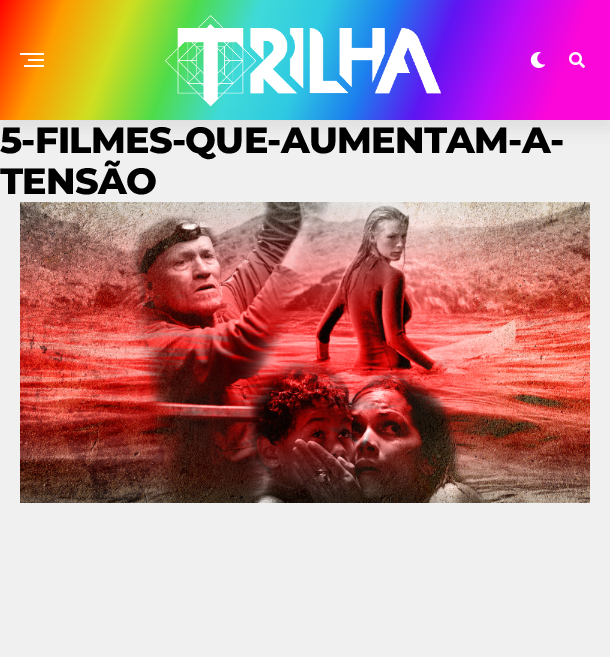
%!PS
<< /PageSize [610 657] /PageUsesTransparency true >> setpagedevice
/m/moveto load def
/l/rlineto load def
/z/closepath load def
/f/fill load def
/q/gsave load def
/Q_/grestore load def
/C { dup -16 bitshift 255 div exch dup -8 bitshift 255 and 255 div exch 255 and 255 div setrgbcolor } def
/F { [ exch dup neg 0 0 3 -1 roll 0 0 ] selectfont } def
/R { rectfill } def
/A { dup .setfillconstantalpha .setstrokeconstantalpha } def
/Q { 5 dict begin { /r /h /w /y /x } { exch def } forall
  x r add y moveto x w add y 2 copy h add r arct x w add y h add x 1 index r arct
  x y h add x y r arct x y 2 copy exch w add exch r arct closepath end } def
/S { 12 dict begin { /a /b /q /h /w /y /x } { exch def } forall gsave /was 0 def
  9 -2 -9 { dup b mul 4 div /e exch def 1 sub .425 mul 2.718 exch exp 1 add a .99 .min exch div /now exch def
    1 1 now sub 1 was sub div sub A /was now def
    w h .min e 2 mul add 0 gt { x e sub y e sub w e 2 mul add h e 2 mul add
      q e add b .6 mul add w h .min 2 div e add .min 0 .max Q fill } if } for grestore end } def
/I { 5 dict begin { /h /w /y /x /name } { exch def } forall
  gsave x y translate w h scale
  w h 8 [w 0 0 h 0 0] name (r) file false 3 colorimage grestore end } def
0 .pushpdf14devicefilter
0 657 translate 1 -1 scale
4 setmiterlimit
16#F0F0F0 C
0 0 610 657 R
16#15151E C
0 8 610 120 0 8 .08 S
q 0 0 m 610 0 l 0 120 l -610 0 l z clip newpath
<< /ShadingType 2 /ColorSpace /DeviceRGB /Coords [19 -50 591 170] /Extend [true true] /Function << /FunctionType 3 /Domain [0 1] /Functions [<< /FunctionType 2 /Domain [0 1] /C0 [1 0 0] /C1 [1 .604 0] /N 1 >> << /FunctionType 2 /Domain [0 1] /C0 [1 .604 0] /C1 [.816 .871 .129] /N 1 >> << /FunctionType 2 /Domain [0 1] /C0 [.816 .871 .129] /C1 [.31 .863 .29] /N 1 >> << /FunctionType 2 /Domain [0 1] /C0 [.31 .863 .29] /C1 [.247 .855 .847] /N 1 >> << /FunctionType 2 /Domain [0 1] /C0 [.247 .855 .847] /C1 [.184 .788 .886] /N 1 >> << /FunctionType 2 /Domain [0 1] /C0 [.184 .788 .886] /C1 [.11 .498 .933] /N 1 >> << /FunctionType 2 /Domain [0 1] /C0 [.11 .498 .933] /C1 [.373 .082 .949] /N 1 >> << /FunctionType 2 /Domain [0 1] /C0 [.373 .082 .949] /C1 [.729 .047 .973] /N 1 >> << /FunctionType 2 /Domain [0 1] /C0 [.729 .047 .973] /C1 [.984 .027 .851] /N 1 >> << /FunctionType 2 /Domain [0 1] /C0 [.984 .027 .851] /C1 [.984 .027 .851] /N 1 >>] /Bounds [.1 .2 .3 .4 .5 .6 .7 .8 .9] /Encode [0 1 0 1 0 1 0 1 0 1 0 1 0 1 0 1 0 1 0 1] >> >> shfill Q_
16#FFFFFF C
20 53 24 2 1 Q f
28 59 16 2 1 Q f
24 65 20 2 1 Q f
(1.rgb) 165 15 276 92 I
(2.rgb) 530 52 16 16 I
(3.rgb) 569 52 16 16 I
/Montserrat-ExtraBold 36.6 F
16#000000 C
0 153 m -.75 0 (5-FILMES-QUE-AUMENTAM-A-) ashow
0 194 m -.75 0 (TENSÃO) ashow
(4.rgb) 20 202 570 301 I
.poppdf14devicefilter showpage
